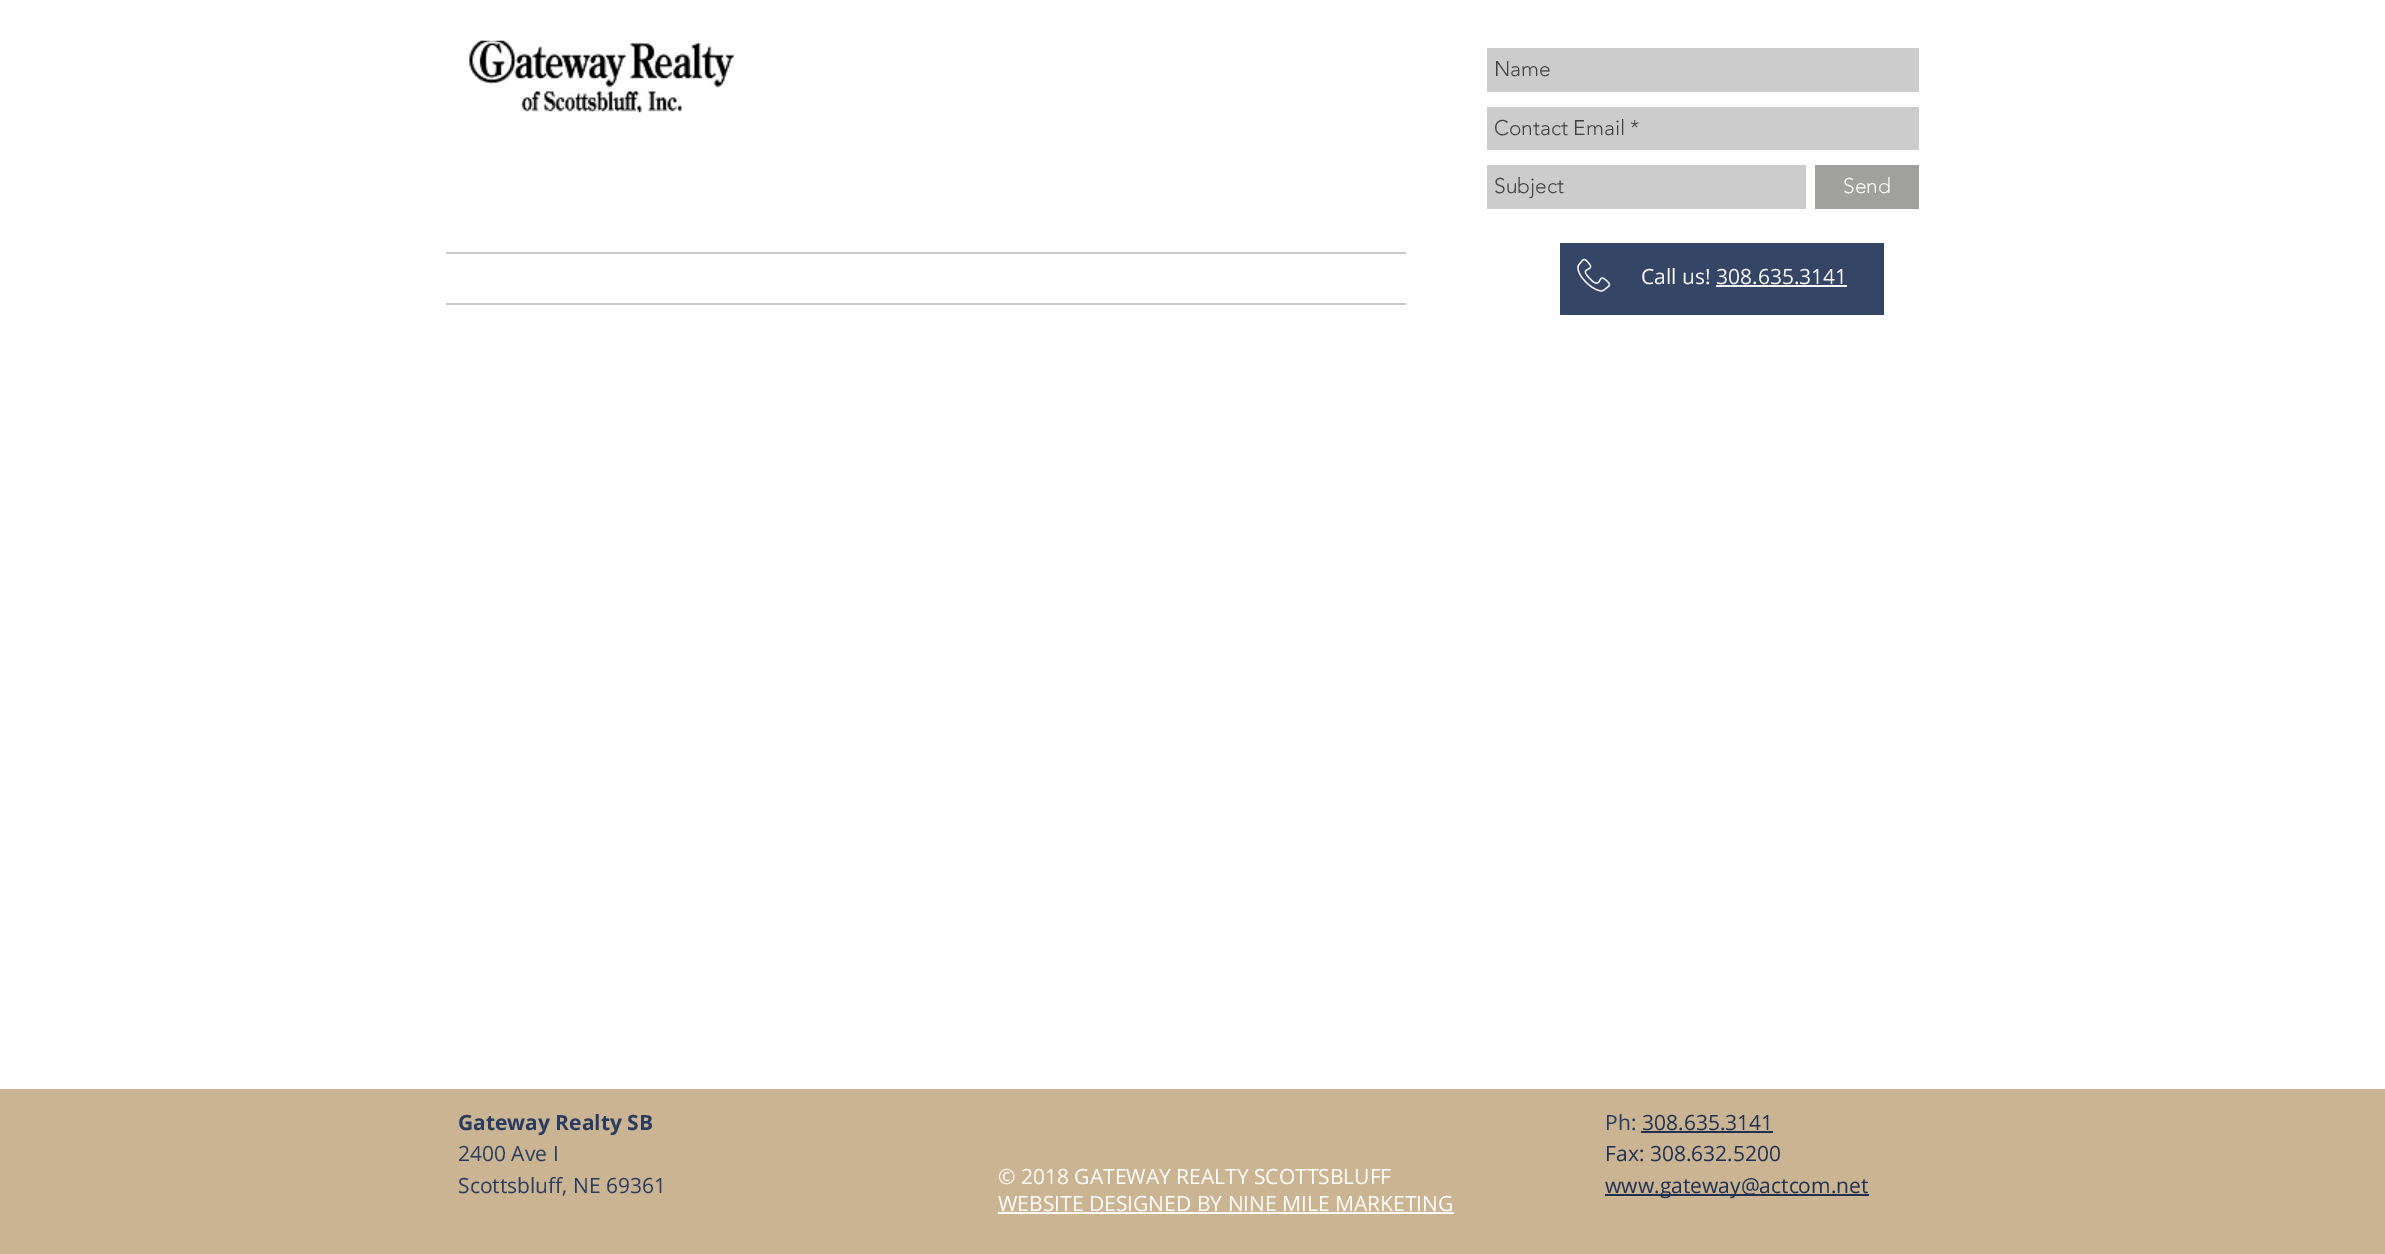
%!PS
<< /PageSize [2385 1254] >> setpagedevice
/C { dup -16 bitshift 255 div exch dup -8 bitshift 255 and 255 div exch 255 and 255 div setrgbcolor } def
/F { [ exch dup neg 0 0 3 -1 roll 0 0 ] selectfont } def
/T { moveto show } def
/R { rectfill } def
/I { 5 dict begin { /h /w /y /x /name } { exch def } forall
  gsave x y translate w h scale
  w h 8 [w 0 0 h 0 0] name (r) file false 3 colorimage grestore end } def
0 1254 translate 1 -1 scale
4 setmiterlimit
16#FFFFFF C
0 0 2385 1254 R
(1.rgb) 468 40 266 73 I
16#CCCCCC C
1487 48 432 44 R
/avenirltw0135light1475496-Light 21 F
16#414141 C
(Name) 1494 76 T
16#CCCCCC C
1487 107 432 43 R
16#414141 C
(Contact Email *) 1494 135 T
16#CCCCCC C
1487 165 319 44 R
16#414141 C
(Subject) 1494 193 T
16#A0A09F C
1815 165 104 44 R
16#FFFFFF C
(Send) 1843 193 T
16#CACACA C
446 252 960 2 R
446 303 960 2 R
16#354565 C
1560 243 324 72 R
(2.rgb) 1577 258 34 34 I
/OpenSans-Regular 21 F
16#FFFFFF C
(Call us! 308.635.3141) 1641 284 T
1716 285 131 2 R
16#CBB492 C
0 1089 2385 165 R
/OpenSans-Bold 21 F
16#283B62 C
(Gateway Realty SB) 458 1130 T
/OpenSans-Regular 21 F
(2400 Ave I) 458 1161 T
(Scottsbluff, NE 69361) 458 1193 T
16#FFFFFF C
(© 2018 GATEWAY REALTY SCOTTSBLUFF) 998 1184 T
(WEBSITE DESIGNED BY NINE MILE MARKETING) 998 1211 T
998 1212 456 2 R
16#283B62 C
(Ph:) 1605 1130 T
16#1E3054 C
(308.635.3141) 1642 1130 T
1641 1131 132 2 R
(Fax: 308.632.5200) 1605 1161 T
1605 1194 264 2 R
(www.gateway@actcom.net) 1605 1193 T
showpage
